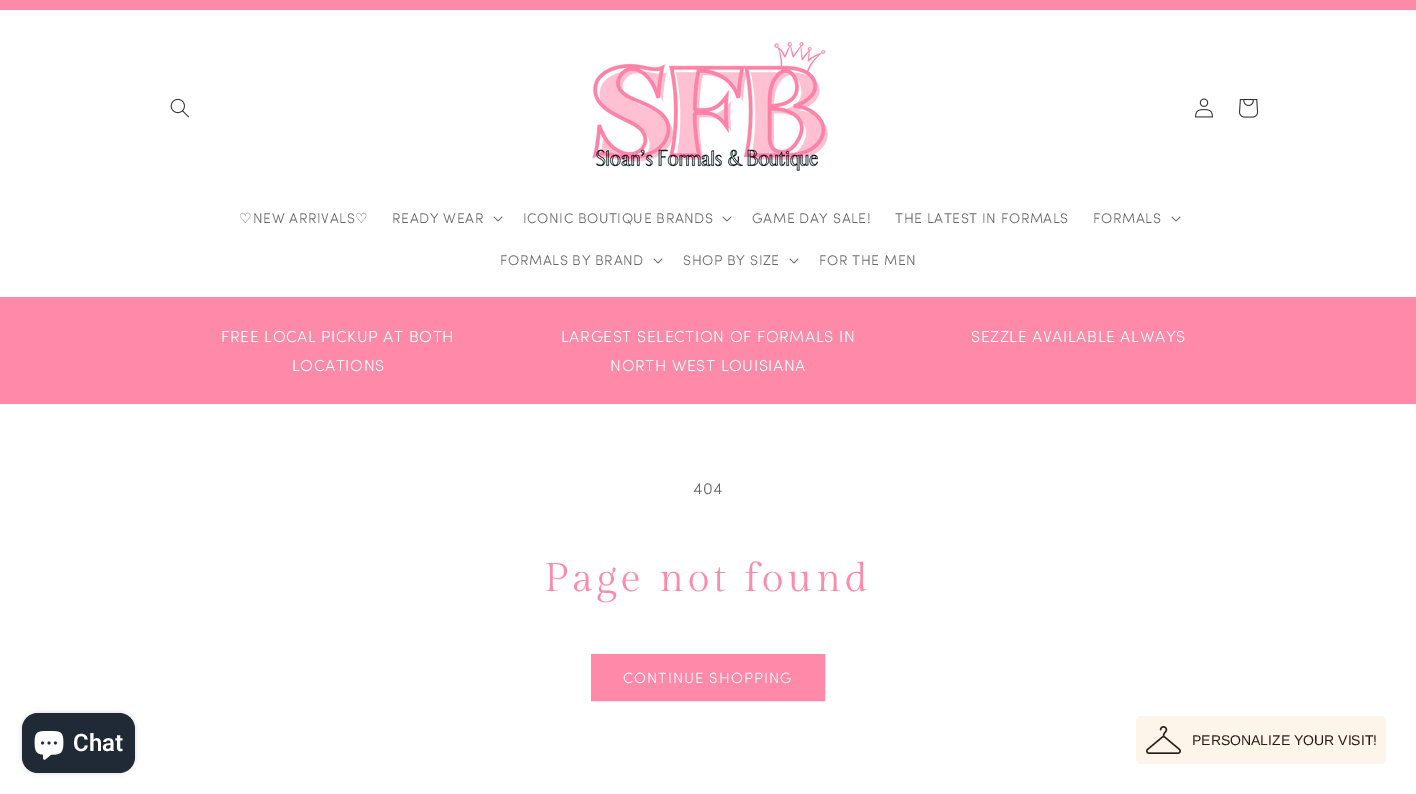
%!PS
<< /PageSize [1416 794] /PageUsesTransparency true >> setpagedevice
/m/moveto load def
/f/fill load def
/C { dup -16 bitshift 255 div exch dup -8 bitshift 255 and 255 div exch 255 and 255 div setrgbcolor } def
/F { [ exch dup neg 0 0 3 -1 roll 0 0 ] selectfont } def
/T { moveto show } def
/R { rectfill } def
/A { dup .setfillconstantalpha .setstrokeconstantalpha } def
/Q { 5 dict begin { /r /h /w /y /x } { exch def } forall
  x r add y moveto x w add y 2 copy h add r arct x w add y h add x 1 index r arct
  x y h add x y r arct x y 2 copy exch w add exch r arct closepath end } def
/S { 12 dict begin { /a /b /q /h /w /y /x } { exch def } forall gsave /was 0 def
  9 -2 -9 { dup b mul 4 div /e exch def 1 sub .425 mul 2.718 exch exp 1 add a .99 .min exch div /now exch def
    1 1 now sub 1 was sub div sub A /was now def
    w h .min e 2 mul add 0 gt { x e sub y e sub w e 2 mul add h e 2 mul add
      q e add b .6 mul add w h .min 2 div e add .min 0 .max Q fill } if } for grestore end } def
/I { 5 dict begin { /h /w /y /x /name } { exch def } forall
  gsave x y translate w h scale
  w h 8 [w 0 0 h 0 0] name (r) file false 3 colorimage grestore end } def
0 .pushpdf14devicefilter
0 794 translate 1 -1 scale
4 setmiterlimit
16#FFFFFF C
0 0 1416 794 R
16#FF89A9 C
0 0 1416 10 R
(1.rgb) 170 98 19 20 I
(2.rgb) 592 42 236 129 I
(3.rgb) 1195 98 18 20 I
(4.rgb) 1239 99 20 19 I
/DejaVuSans-Regular 14 F
16#656565 C
239 223 m .6 0 (♡) ashow
/Sofia-Light 14 F
253 223 m .6 0 (NEW ARRIVALS) ashow
/DejaVuSans-Regular 14 F
355 223 m .6 0 (♡) ashow
/Sofia-Light 14 F
392 223 m .6 0 (READY WEAR) ashow
(5.rgb) 493 216 10 6 I
523 223 m .6 0 (ICONIC BOUTIQUE BRANDS) ashow
(5.rgb) 722 216 10 6 I
752 223 m .6 0 (GAME DAY SALE!) ashow
895 223 m .6 0 (THE LATEST IN FORMALS) ashow
1093 223 m .6 0 (FORMALS) ashow
(5.rgb) 1171 216 10 6 I
500 265 m .6 0 (FORMALS BY BRAND) ashow
(5.rgb) 653 258 10 6 I
683 265 m .6 0 (SHOP BY SIZE) ashow
(5.rgb) 789 258 10 6 I
819 265 m .6 0 (FOR THE MEN) ashow
16#FF89A9 C
0 297 1416 107 R
/Sofia-Light 16 F
16#FFFFFF C
221 342 m .6 0 (FREE LOCAL PICKUP AT BOTH) ashow
292 371 m .6 0 (LOCATIONS) ashow
561 342 m .6 0 (LARGEST SELECTION OF FORMALS IN) ashow
610 371 m .6 0 (NORTH WEST LOUISIANA) ashow
971 342 m .6 0 (SEZZLE AVAILABLE ALWAYS) ashow
16#656565 C
693 494 m .6 0 (404) ashow
/GildaDisplay-Regular 40 F
16#FF89A9 C
544 591 m 4 0 (Page not found) ashow
591.5 654.5 233 46 rectstroke
592 655 232 45 R
/Sofia-Light 15 F
16#FFFFFF C
623 683 m 1 0 (CONTINUE SHOPPING) ashow
16#000000 C
22 713 113 60 16 2.5 .15 S
16#202A36 C
22 713 113 60 16 Q f
(6.rgb) 34 731 30 29 I
/Roboto-SemiBold 24 F
16#FFFFFF C
(Chat) 73 751 T
16#FDF5E9 C
1136 716 250 48 5 Q f
(7.rgb) 1146 726 35 28 I
/LiberationSans-Regular 14 F
16#281A1A C
(PERSONALIZE YOUR VISIT!) 1192 745 T
.poppdf14devicefilter showpage
